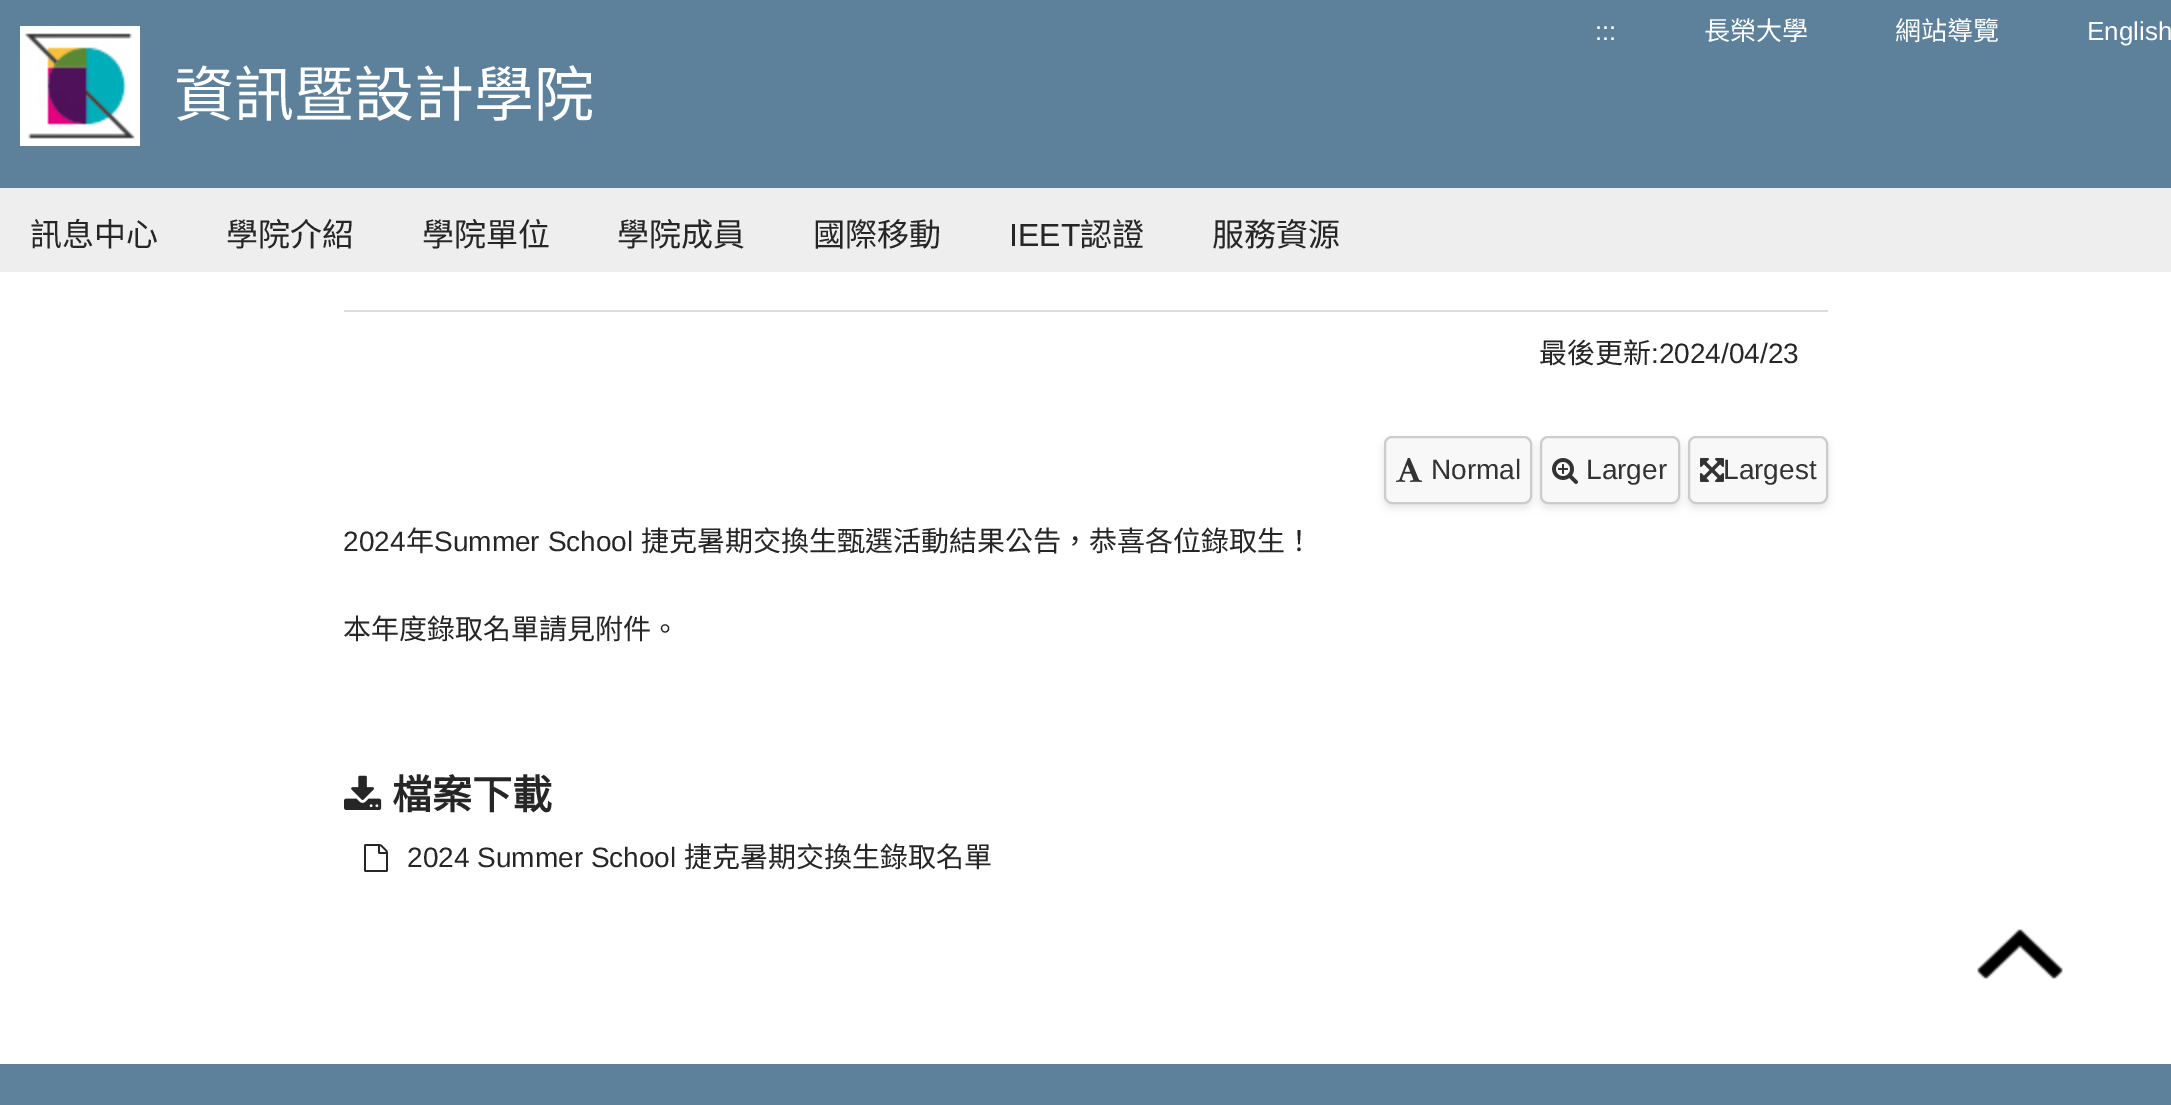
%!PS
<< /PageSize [2171 1105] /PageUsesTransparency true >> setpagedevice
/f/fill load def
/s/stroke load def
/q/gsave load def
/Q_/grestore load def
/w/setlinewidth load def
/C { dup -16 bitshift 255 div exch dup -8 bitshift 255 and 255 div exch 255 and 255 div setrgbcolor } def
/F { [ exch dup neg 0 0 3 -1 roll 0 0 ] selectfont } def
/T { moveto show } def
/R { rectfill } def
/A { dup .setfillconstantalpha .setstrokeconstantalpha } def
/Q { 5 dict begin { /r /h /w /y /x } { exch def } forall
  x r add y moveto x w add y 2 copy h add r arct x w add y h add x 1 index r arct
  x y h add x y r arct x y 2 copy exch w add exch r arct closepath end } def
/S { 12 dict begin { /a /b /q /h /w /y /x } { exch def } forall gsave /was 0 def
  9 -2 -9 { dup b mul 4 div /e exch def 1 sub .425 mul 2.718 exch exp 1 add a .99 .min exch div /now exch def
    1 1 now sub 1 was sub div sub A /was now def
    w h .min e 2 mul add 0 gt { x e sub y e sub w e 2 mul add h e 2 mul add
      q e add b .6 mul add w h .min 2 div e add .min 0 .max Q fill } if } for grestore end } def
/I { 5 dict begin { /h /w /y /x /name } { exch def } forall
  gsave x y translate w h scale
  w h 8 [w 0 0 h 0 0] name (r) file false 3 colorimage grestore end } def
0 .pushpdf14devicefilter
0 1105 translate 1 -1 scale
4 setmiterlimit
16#FFFFFF C
0 0 2171 1105 R
16#5D819B C
0 0 2171 188 R
/LiberationSans-Regular 26 F
16#FFFFFF C
(:::) 1595 40 T
/NotoSansCJKTC-Regular 26 F
(長榮大學) 1704 40 T
(網站導覽) 1895 40 T
/LiberationSans-Regular 26 F
(English) 2087 40 T
(1.rgb) 20 26 120 120 I
/NotoSansCJKTC-Regular 60 F
(資訊暨設計學院) 174 116 T
16#EEEEEE C
0 188 2171 84 R
/NotoSansCJKTC-Regular 32 F
16#262626 C
(訊息中心) 30 246 T
(學院介紹) 226 246 T
(學院單位) 422 246 T
(學院成員) 617 246 T
(國際移動) 813 246 T
/LiberationSans-Regular 32 F
(IEET) 1009 246 T
/NotoSansCJKTC-Regular 32 F
(認證) 1080 246 T
(服務資源) 1212 246 T
16#DDDDDD C
344 310 1484 2 R
/NotoSansCJKTC-Regular 28 F
16#262626 C
(最後更新) 1539 363 T
/LiberationSans-Regular 28 F
(:2024/04/23) 1651 363 T
16#000000 C
1384 440 148 68 8 4 .1 S
16#F8F8F8 C
1385 437 146 66 7 Q q f Q_
16#CCCCCC C
2 w
s
(2.rgb) 1396 458 26 24 I
16#333333 C
(Normal) 1431 479 T
16#000000 C
1540 440 140 68 8 4 .1 S
16#F8F8F8 C
1541 437 138 66 7 Q q f Q_
16#CCCCCC C
s
(3.rgb) 1552 458 26 26 I
16#333333 C
(Larger) 1586 479 T
16#000000 C
1688 440 140 68 8 4 .1 S
16#F8F8F8 C
1689 437 138 66 7 Q q f Q_
16#CCCCCC C
s
(4.rgb) 1700 458 24 24 I
16#333333 C
(Largest) 1723 479 T
16#262626 C
(2024) 343 551 T
/NotoSansCJKTC-Regular 28 F
(年) 406 551 T
/LiberationSans-Regular 28 F
(Summer School) 434 551 T
/NotoSansCJKTC-Regular 28 F
(捷克暑期交換生甄選活動結果公告，恭喜各位錄取生！) 641 551 T
(本年度錄取名單請見附件。) 343 639 T
(5.rgb) 344 775 38 35 I
/NotoSansCJKTC-Bold 40 F
(檔案下載) 392 809 T
(6.rgb) 364 844 24 28 I
/LiberationSans-Regular 28 F
(2024 Summer School) 407 867 T
/NotoSansCJKTC-Regular 28 F
(捷克暑期交換生錄取名單) 684 867 T
(7.rgb) 1977 929 86 50 I
16#5D819B C
0 1064 2171 41 R
.poppdf14devicefilter showpage
